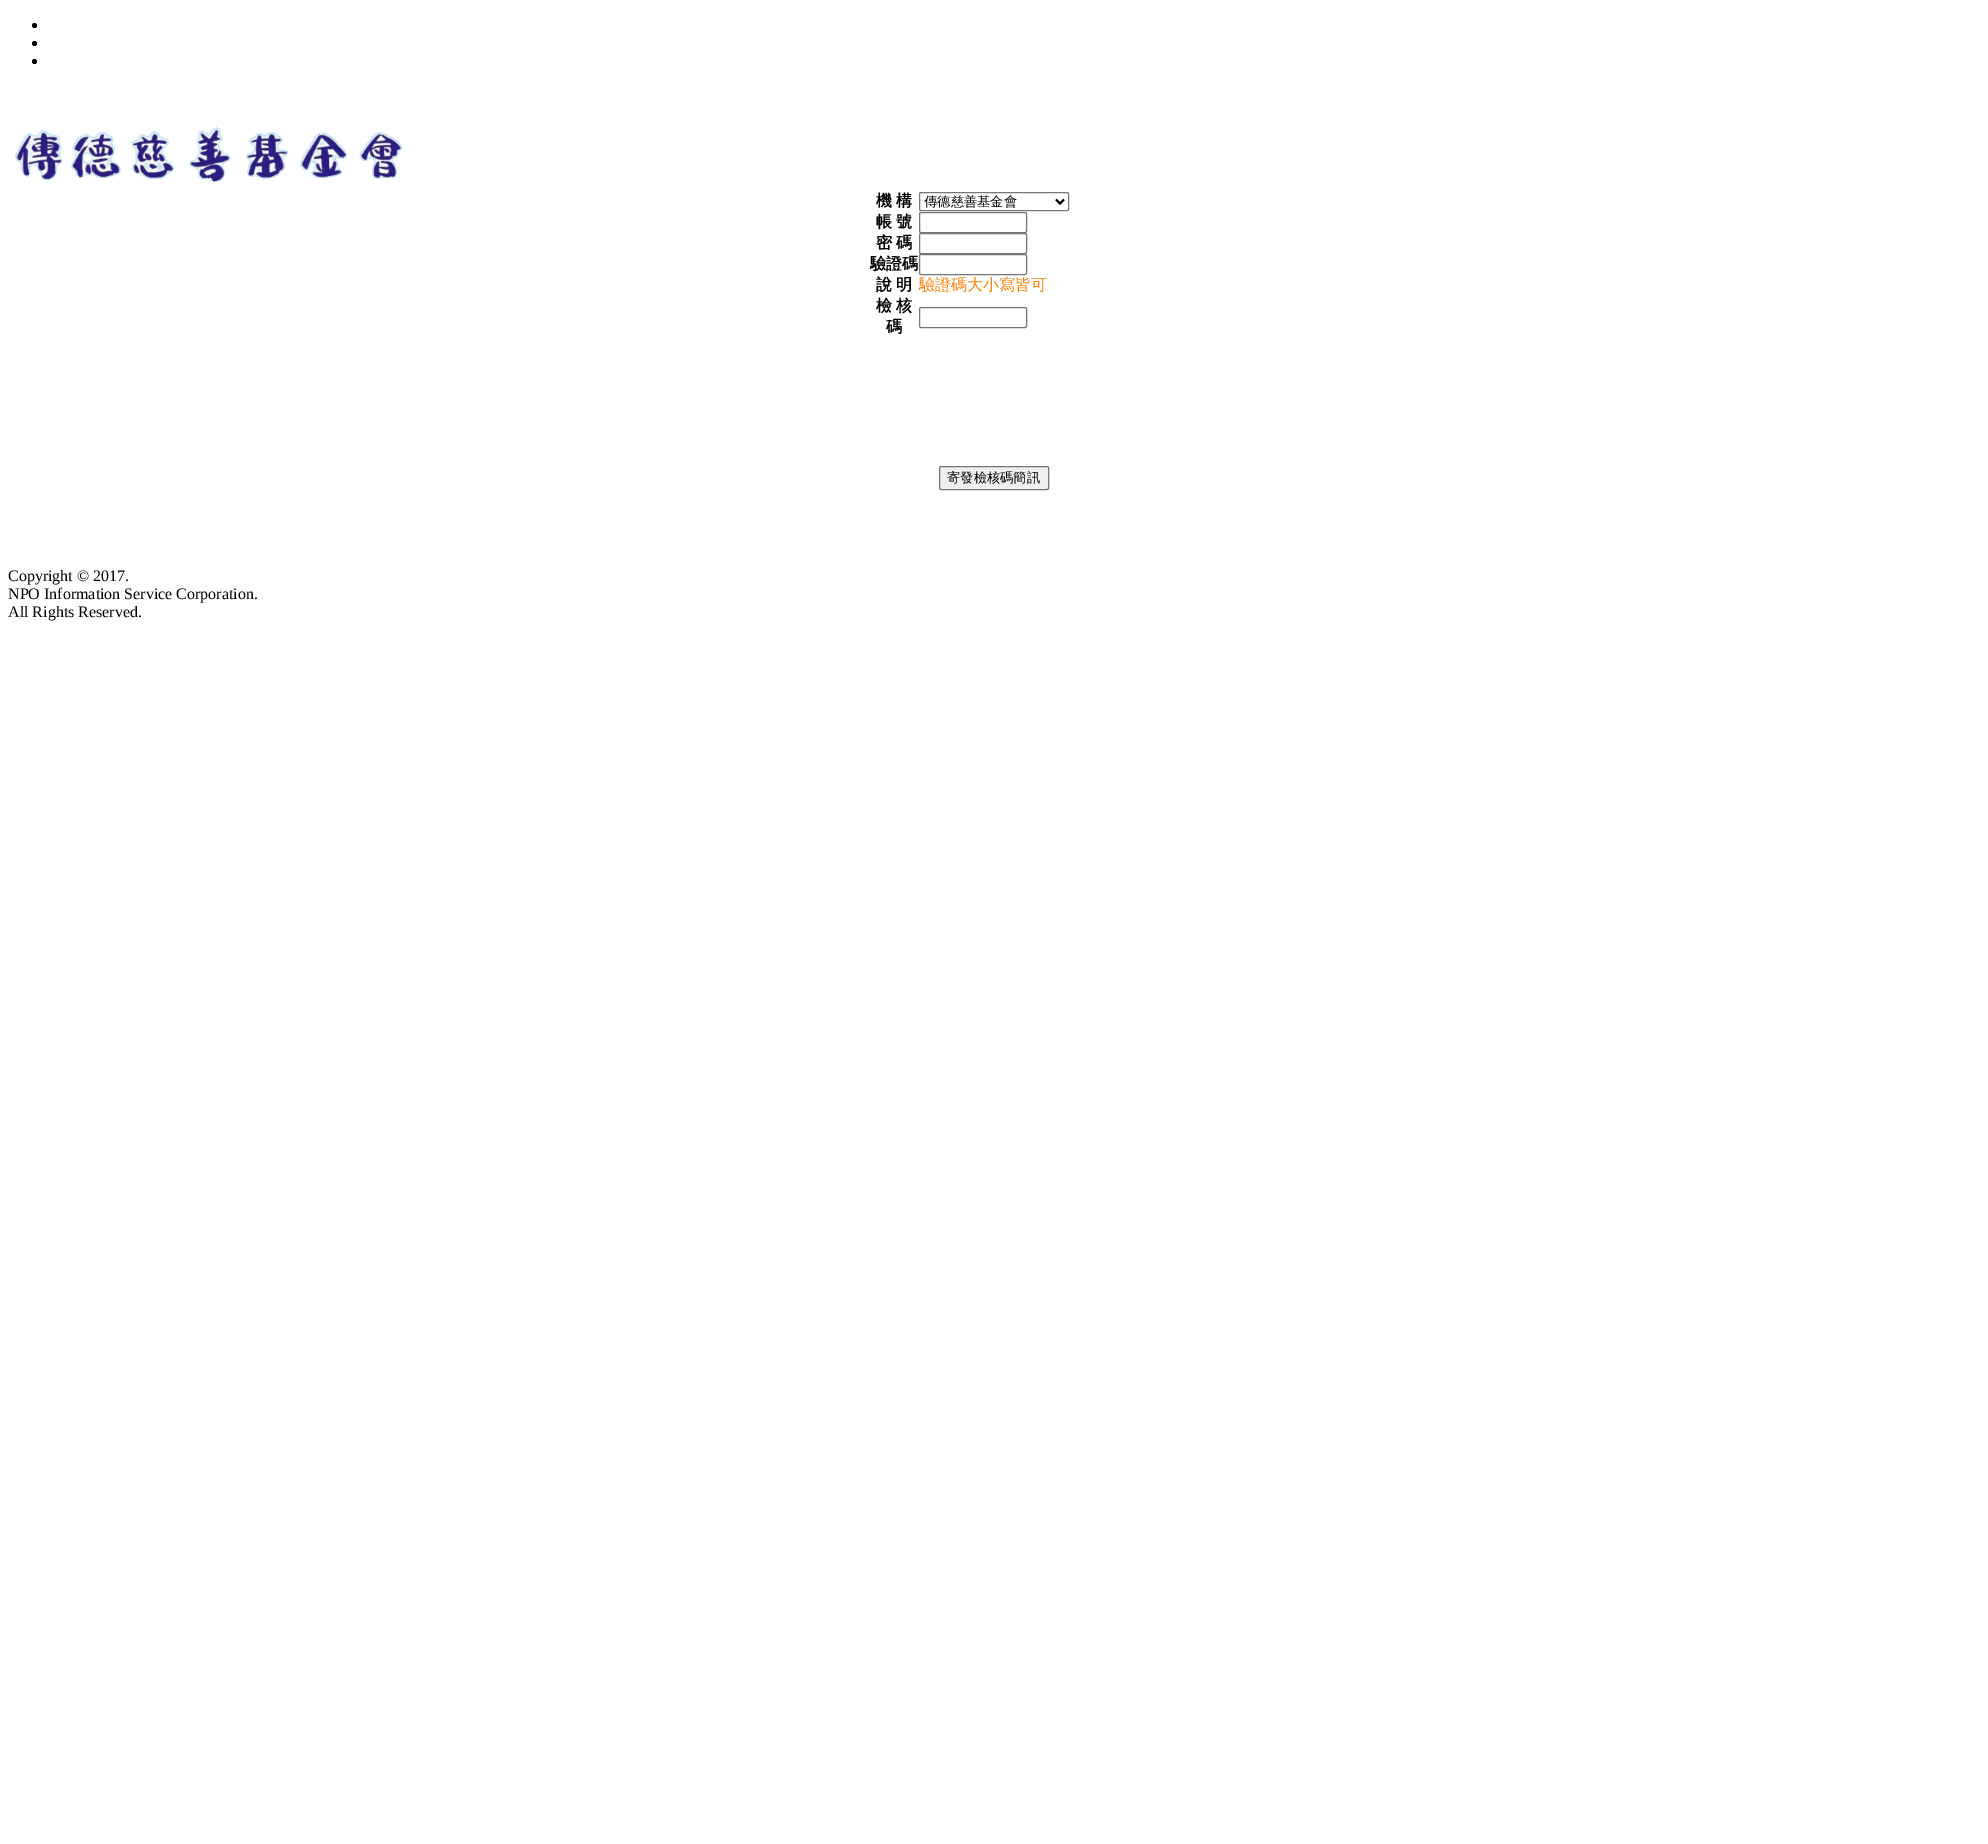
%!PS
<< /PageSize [1988 1844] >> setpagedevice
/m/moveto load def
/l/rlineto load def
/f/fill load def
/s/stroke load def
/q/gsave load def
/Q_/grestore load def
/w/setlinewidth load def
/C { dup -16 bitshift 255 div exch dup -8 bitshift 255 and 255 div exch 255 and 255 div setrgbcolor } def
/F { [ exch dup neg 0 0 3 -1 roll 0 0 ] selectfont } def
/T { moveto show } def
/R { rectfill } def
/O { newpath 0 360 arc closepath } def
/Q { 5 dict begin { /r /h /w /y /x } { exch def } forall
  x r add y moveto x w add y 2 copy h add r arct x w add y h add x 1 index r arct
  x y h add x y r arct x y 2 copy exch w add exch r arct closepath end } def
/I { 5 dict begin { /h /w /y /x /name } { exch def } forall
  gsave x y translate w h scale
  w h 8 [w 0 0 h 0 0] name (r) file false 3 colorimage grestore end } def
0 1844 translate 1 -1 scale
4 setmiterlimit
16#FFFFFF C
0 0 1988 1844 R
16#000000 C
34.5 25.5 2.5 O f
34.5 43.5 2.5 O f
34.5 61.5 2.5 O f
(1.rgb) 15 127 387 55 I
/WenQuanYiZenHei-Bold 16 F
876 206 m -1 0 32 (機 構) widthshow
16#767676 C
919.5 192.5 149 18 1.5 Q s
16#000000 C
2 w
1056 199.5 m 4 4 l 4 -4 l s
/WenQuanYiZenHei-Medium 13.25 F
(傳德慈善基金會) 924 206 T
/WenQuanYiZenHei-Bold 16 F
876 227 m -1 0 32 (帳 號) widthshow
16#767676 C
1 w
919.5 212.5 107 20 1.5 Q s
16#000000 C
876 248 m -1 0 32 (密 碼) widthshow
16#767676 C
919.5 233.5 107 20 1.5 Q s
16#000000 C
(驗證碼) 870 269 T
16#767676 C
919.5 254.5 107 20 1.5 Q s
16#000000 C
876 290 m -1 0 32 (說 明) widthshow
/WenQuanYiZenHei-Medium 16 F
16#FF8000 C
(驗證碼大小寫皆可) 919 290 T
/WenQuanYiZenHei-Bold 16 F
16#000000 C
876 311 m -1 0 32 (檢 核) widthshow
(碼) 886 332 T
16#767676 C
919.5 307.5 107 20 1.5 Q s
16#EFEFEF C
939.5 466.5 109 23 1.5 Q q f Q_
16#767676 C
s
/WenQuanYiZenHei-Medium 13.25 F
16#000000 C
(寄發檢核碼簡訊) 947 482 T
/LiberationSerif-Regular 16 F
(Copyright © 2017.) 8 581 T
(NPO Information Service Corporation.) 8 599 T
(All Rights Reserved.) 8 617 T
showpage
